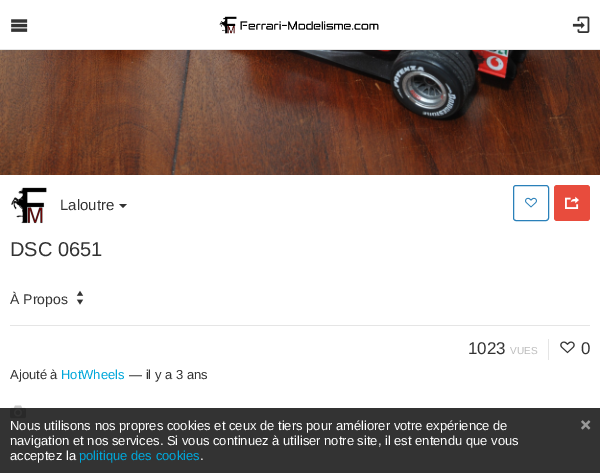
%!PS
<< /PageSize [600 473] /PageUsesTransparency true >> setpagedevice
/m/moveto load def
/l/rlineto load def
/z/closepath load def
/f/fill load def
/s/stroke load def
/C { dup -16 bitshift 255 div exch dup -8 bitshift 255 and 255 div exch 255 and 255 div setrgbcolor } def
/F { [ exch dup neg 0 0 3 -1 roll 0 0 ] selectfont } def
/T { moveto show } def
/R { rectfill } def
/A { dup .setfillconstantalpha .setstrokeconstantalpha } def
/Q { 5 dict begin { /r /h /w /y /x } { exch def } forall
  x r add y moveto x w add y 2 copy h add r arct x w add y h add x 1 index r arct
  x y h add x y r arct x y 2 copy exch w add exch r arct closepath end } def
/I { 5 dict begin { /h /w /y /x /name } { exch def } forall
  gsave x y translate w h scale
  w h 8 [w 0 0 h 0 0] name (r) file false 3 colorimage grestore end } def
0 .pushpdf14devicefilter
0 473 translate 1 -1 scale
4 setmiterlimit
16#FFFFFF C
0 0 600 473 R
16#E6E6E6 C
0 49 600 1 R
(1.rgb) 11 19 17 13 I
(2.rgb) 219 16 160 18 I
(3.rgb) 572 16 18 17 I
(4.rgb) 0 50 600 125 I
(5.rgb) 11 187 36 37 I
/LiberationSans-Regular 15 F
16#333333 C
(Laloutre) 60 210 T
119 204 m 8 0 l -4 4 l z f
16#2A80B9 C
513.5 185.5 35 35 2.5 Q s
(6.rgb) 525 197 12 11 I
16#E84C3D C
554 185 36 36 3 Q f
(7.rgb) 565 196 14 13 I
/LiberationSans-Regular 20 F
16#333333 C
(DSC 0651) 10 256 T
16#E5E5E5 C
10 325 580 1 R
/LiberationSans-Regular 14 F
16#333333 C
(À Propos) 10 304 T
(8.rgb) 76 290 8 15 I
/LiberationSans-Regular 17 F
(1023) 468 354 T
/LiberationSans-Regular 10 F
16#BBBBBB C
(VUES) 510 354 T
16#E5E5E5 C
548 339 1 21 R
(9.rgb) 560 341 15 13 I
/LiberationSans-Regular 17 F
16#333333 C
(0) 581 354 T
/LiberationSans-Regular 13 F
(Ajouté à) 10 379 T
16#00A7DA C
(HotWheels) 61 379 T
16#333333 C
(— il y a 3 ans) 129 379 T
(10.rgb) 10 405 16 14 I
0.8 A
16#000000 C
0 408 600 65 R
1 A
16#FFFFFF C
(Nous utilisons nos propres cookies et ceux de tiers pour améliorer votre expérience de) 10 430 T
(navigation et nos services. Si vous continuez à utiliser notre site, il est entendu que vous) 10 445 T
(acceptez la) 10 460 T
16#00A7DA C
(politique des cookies) 79 460 T
16#FFFFFF C
(.) 200 460 T
(11.rgb) 581 420 10 10 I
.poppdf14devicefilter showpage
